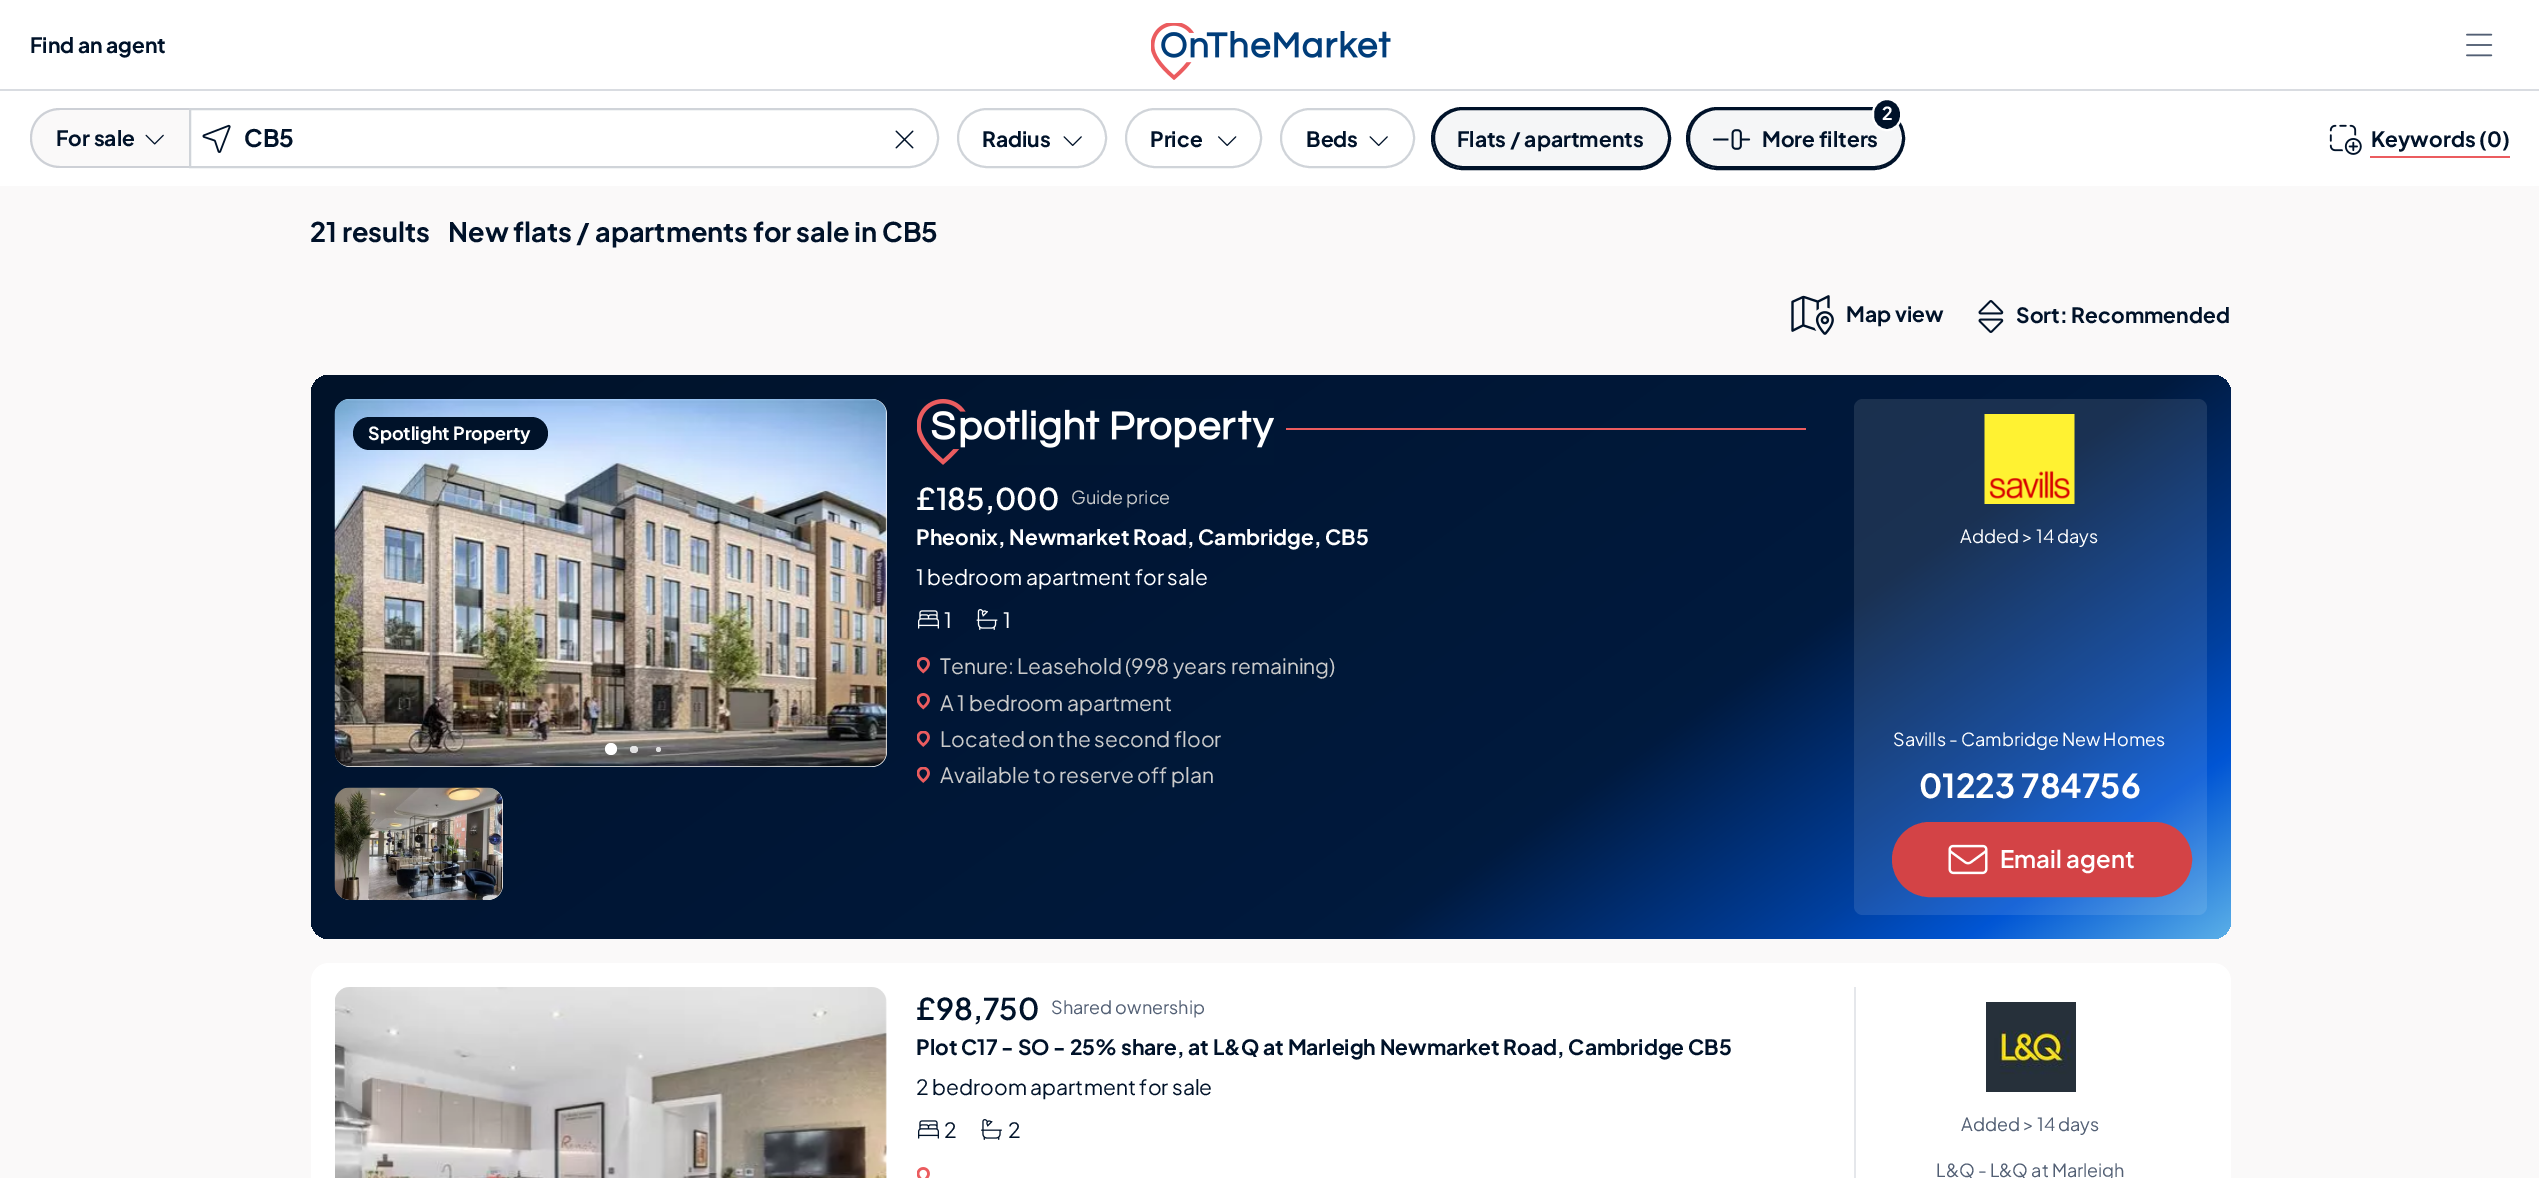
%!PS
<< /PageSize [2539 1178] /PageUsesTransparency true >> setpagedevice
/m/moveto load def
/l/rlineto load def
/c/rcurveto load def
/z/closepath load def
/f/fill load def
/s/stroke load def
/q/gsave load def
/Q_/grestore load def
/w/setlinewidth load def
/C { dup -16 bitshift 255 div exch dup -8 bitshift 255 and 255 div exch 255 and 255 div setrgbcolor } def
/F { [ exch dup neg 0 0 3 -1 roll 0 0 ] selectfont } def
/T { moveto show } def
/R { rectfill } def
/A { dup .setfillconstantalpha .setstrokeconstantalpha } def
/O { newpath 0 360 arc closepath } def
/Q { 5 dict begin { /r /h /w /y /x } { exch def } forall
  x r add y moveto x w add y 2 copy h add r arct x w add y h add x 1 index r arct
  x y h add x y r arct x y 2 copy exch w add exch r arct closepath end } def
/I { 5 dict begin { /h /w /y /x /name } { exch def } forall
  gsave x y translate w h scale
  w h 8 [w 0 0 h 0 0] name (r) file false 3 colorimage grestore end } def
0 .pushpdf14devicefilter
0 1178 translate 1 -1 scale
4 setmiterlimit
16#FFFFFF C
0 0 2539 1178 R
16#D9DCE1 C
0 89 2539 2 R
/PlusJakartaSans-Bold 21 F
16#001229 C
(Find an agent) 30 53 T
(1.rgb) 1151 23 240 57 I
(2.rgb) 2466 33 27 24 I
16#FAF9F9 C
60 108 m 129 0 l 0 60 l -129 0 l -16.5 0 -30 -13.5 -30 -30 c 0 -16.5 13.5 -30 30 -30 c z f
0.5 A
16#A1A8B3 C
60 108 m 129 0 l 0 60 l -129 0 l -17 0 -30 -13 -30 -30 c 0 -17 13 -30 30 -30 c z 60 110 m 129 0 l 0 56 l -129 0 l -16 0 -28 -12 -28 -28 c 0 -16 12 -28 28 -28 c z eofill
1 A
16#001229 C
(For sale) 56 146 T
(3.rgb) 145 134 19 11 I
16#D0D4D9 C
2 w
190 109 m 719 0 l 16 0 29 13 29 29 c 0 16 -13 29 -29 29 c -719 0 l z s
(4.rgb) 202 124 29 29 I
/PlusJakartaSans-Bold 24 F
16#001229 C
(CB5) 244 147 T
(5.rgb) 895 130 19 19 I
16#D0D4D9 C
958 109 148 58 29 Q s
/PlusJakartaSans-Bold 21 F
16#001229 C
(Radius) 982 147 T
(6.rgb) 1063 136 19 10 I
16#D0D4D9 C
1126 109 135 58 29 Q s
16#001229 C
(Price) 1150 147 T
(7.rgb) 1218 136 19 10 I
16#D0D4D9 C
1281 109 133 58 29 Q s
16#001229 C
(Beds) 1306 147 T
(6.rgb) 1369 136 19 10 I
1432 108 238 61 30.5 Q s
0.1 A
16#A1A8B3 C
1434 109 235 58 29 Q f
1 A
16#001229 C
1434 109 235 58 29 Q s
(Flats / apartments) 1457 147 T
1687 108 217 61 30.5 Q s
0.1 A
16#A1A8B3 C
1689 109 214 58 29 Q f
1 A
16#001229 C
1689 109 214 58 29 Q s
1873 99 28 31 14 Q q f Q_
16#FFFFFF C
s
/PlusJakartaSans-Bold 18 F
(2) 1882 120 T
(8.rgb) 1713 129 38 21 I
/PlusJakartaSans-Bold 21 F
16#001229 C
(More filters) 1762 147 T
(9.rgb) 2329 124 33 31 I
(Keywords \(0\)) 2371 147 T
16#EB5C5F C
2370 156 140 2 R
16#FAF9F9 C
0 186 2539 992 R
/PlusJakartaSans-Bold 27 F
16#001229 C
(21 results) 310 242 T
(New flats / apartments for sale in CB5) 448 242 T
(10.rgb) 1791 295 43 40 I
/PlusJakartaSans-Bold 21 F
(Map view) 1846 322 T
(11.rgb) 1978 300 26 33 I
(Sort: Recommended) 2016 323 T
q 311 375 1920 564 18 Q clip newpath
<< /ShadingType 2 /ColorSpace /DeviceRGB /Coords [822 17 1764 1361] /Extend [true true] /Function << /FunctionType 3 /Domain [0 1] /Functions [<< /FunctionType 2 /Domain [0 1] /C0 [0 .071 .161] /C1 [0 .102 .243] /N 1 >> << /FunctionType 2 /Domain [0 1] /C0 [0 .102 .243] /C1 [0 .251 .624] /N 1 >> << /FunctionType 2 /Domain [0 1] /C0 [0 .251 .624] /C1 [0 .333 .831] /N 1 >> << /FunctionType 2 /Domain [0 1] /C0 [0 .333 .831] /C1 [.541 .875 .949] /N 1 >>] /Bounds [.65 .8 .86] /Encode [0 1 0 1 0 1 0 1] >> >> shfill Q_
16#FFFFFF C
335 399 552 368 15 Q f
(12.rgb) 334 399 553 368 I
611 749 6 O f
0.8 A
630 746 8 7 3.5 Q f
658.5 749.5 2.5 O f
1 A
16#001229 C
353 417 195 33 16.5 Q f
/PlusJakartaSans-Bold 18 F
16#FFFFFF C
(Spotlight Property) 368 440 T
335 788 168 112 15 Q f
(13.rgb) 334 787 169 113 I
(14.rgb) 917 399 357 66 I
16#EB5C5F C
1286 428 520 2 R
/PlusJakartaSans-SemiBold 30 F
16#FFFFFF C
(£185,000) 916 510 T
/PlusJakartaSans-Regular 18 F
16#CBCBCB C
(Guide price) 1071 504 T
/PlusJakartaSans-Bold 21 F
16#FFFFFF C
(Pheonix, Newmarket Road, Cambridge, CB5) 916 545 T
/PlusJakartaSans-Regular 21 F
(1 bedroom apartment for sale) 916 585 T
(15.rgb) 918 610 21 19 I
(1) 944 628 T
(16.rgb) 976 609 22 21 I
(1) 1003 628 T
(17.rgb) 917 657 13 17 I
16#CBCBCB C
(Tenure: Leasehold \(998 years remaining\)) 940 674 T
(18.rgb) 917 693 13 17 I
(A 1 bedroom apartment) 940 711 T
(19.rgb) 917 731 13 16 I
(Located on the second floor) 940 747 T
(20.rgb) 917 767 13 16 I
(Available to reserve off plan) 940 783 T
0.1 A
16#FFFFFF C
1854 399 353 516 9 Q f
1 A
(21.rgb) 1984 414 91 90 I
/PlusJakartaSans-Regular 18 F
(Added > 14 days) 1960 543 T
(Savills - Cambridge New Homes) 1893 746 T
/PlusJakartaSans-Bold 33 F
(01223 784756) 1919 798 T
16#D34346 C
1893.5 823.5 297 72 36 Q q f Q_
3 w
s
(22.rgb) 1948 844 40 31 I
/PlusJakartaSans-SemiBold 24 F
16#FFFFFF C
(Email agent) 2000 868 T
329 963 m 1884 0 l 10 0 18 8 18 18 c 0 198 l -1920 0 l 0 -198 l 0 -10 8 -18 18 -18 c z f
(23.rgb) 335 987 552 191 I
/PlusJakartaSans-SemiBold 30 F
16#001229 C
(£98,750) 916 1020 T
/PlusJakartaSans-Regular 18 F
16#525F74 C
(Shared ownership) 1051 1014 T
/PlusJakartaSans-Bold 21 F
16#001229 C
(Plot C17 - SO - 25% share, at L&Q at Marleigh Newmarket Road, Cambridge CB5) 916 1055 T
/PlusJakartaSans-Regular 21 F
(2 bedroom apartment for sale) 916 1095 T
(24.rgb) 918 1120 21 19 I
(2) 944 1138 T
(25.rgb) 981 1119 21 21 I
(2) 1008 1138 T
(26.rgb) 917 1167 13 11 I
16#E5E7EB C
1854 987 2 191 R
(27.rgb) 1986 1002 90 90 I
/PlusJakartaSans-Regular 18 F
16#525F74 C
(Added > 14 days) 1961 1131 T
(L&Q - L&Q at Marleigh) 1936 1177 T
.poppdf14devicefilter showpage
